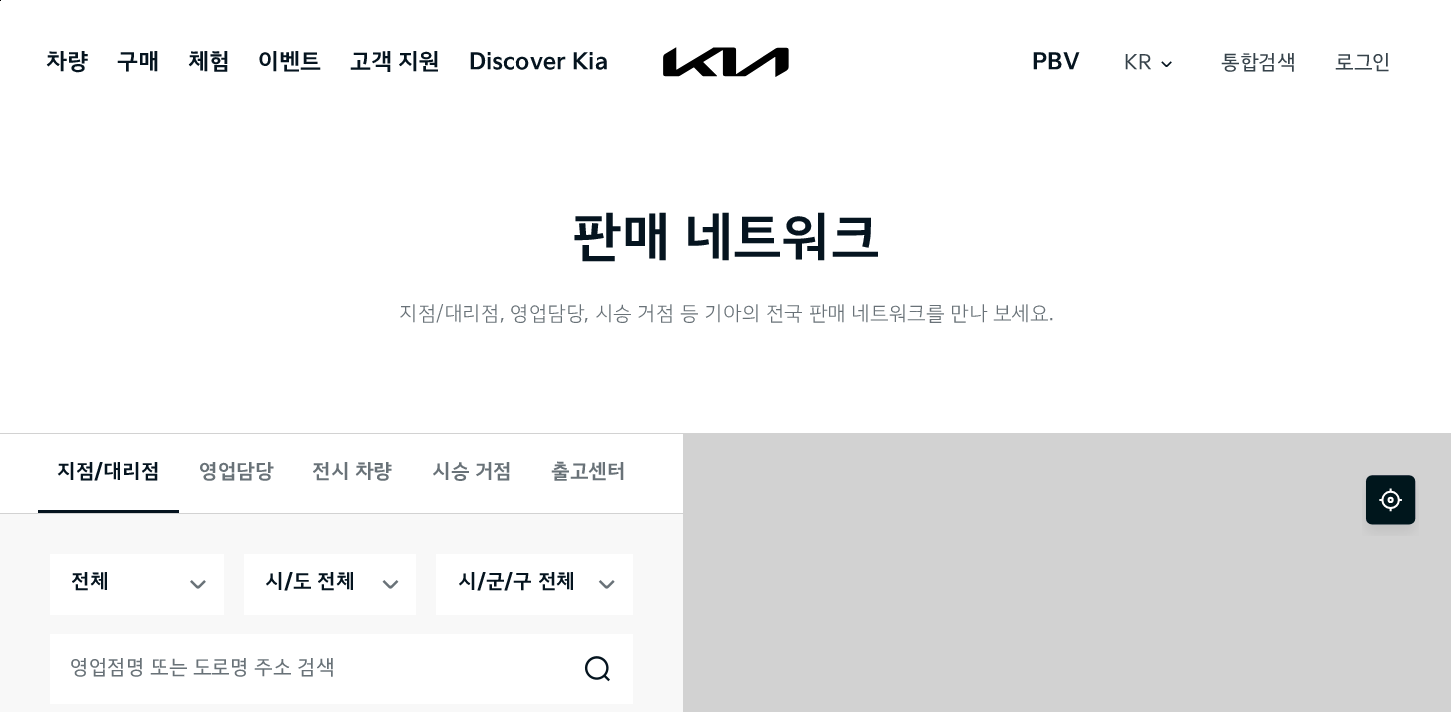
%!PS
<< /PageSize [1451 712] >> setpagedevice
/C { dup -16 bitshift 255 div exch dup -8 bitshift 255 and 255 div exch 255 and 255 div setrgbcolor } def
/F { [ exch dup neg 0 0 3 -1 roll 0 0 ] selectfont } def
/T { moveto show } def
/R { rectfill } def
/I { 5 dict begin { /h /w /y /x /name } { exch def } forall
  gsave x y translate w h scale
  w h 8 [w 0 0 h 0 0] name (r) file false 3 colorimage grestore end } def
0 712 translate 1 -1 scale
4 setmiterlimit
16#FFFFFF C
0 0 1451 712 R
16#000000 C
0 0 1 1 R
(1.rgb) 663 47 126 30 I
/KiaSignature-Bold 22.5 F
16#05141F C
(차량) 46 69 T
(구매) 117 69 T
(체험) 188 69 T
(이벤트) 258 69 T
(고객 지원) 350 69 T
(Discover Kia) 469 69 T
(PBV) 1032 69 T
/KiaSignature-Regular 20 F
16#37434B C
(KR) 1124 69 T
(2.rgb) 1161 61 11 6 I
(통합검색) 1221 69 T
(로그인) 1335 69 T
/KiaSignature-Bold 52.5 F
16#05141F C
(판매 네트워크) 572 255 T
/KiaSignature-Light 20 F
16#697278 C
(지점/대리점, 영업담당, 시승 거점 등 기아의 전국 판매 네트워크를 만나 보세요.) 399 320 T
16#D2D2D2 C
0 433 1451 1 R
0 513 683 1 R
16#05141F C
38 510 141 3 R
/KiaSignature-Bold 20 F
(지점/대리점) 57 478 T
16#697278 C
(영업담당) 199 478 T
(전시 차량) 312 478 T
(시승 거점) 432 478 T
(출고센터) 551 478 T
16#F8F8F8 C
0 514 683 198 R
16#FFFFFF C
50 554 174 61 R
16#05141F C
(전체) 71 588 T
(3.rgb) 190 580 16 9 I
16#FFFFFF C
244 554 172 61 R
16#05141F C
(시/도 전체) 265 588 T
(4.rgb) 382 580 17 9 I
16#FFFFFF C
436 554 197 61 R
16#05141F C
(시/군/구 전체) 458 588 T
(5.rgb) 598 580 17 9 I
16#FFFFFF C
50 634 583 70 R
/KiaSignature-Regular 20 F
16#697278 C
(영업점명 또는 도로명 주소 검색) 70 674 T
(6.rgb) 584 656 26 26 I
16#D2D2D2 C
683 434 768 278 R
(7.rgb) 1362 475 57 61 I
showpage
